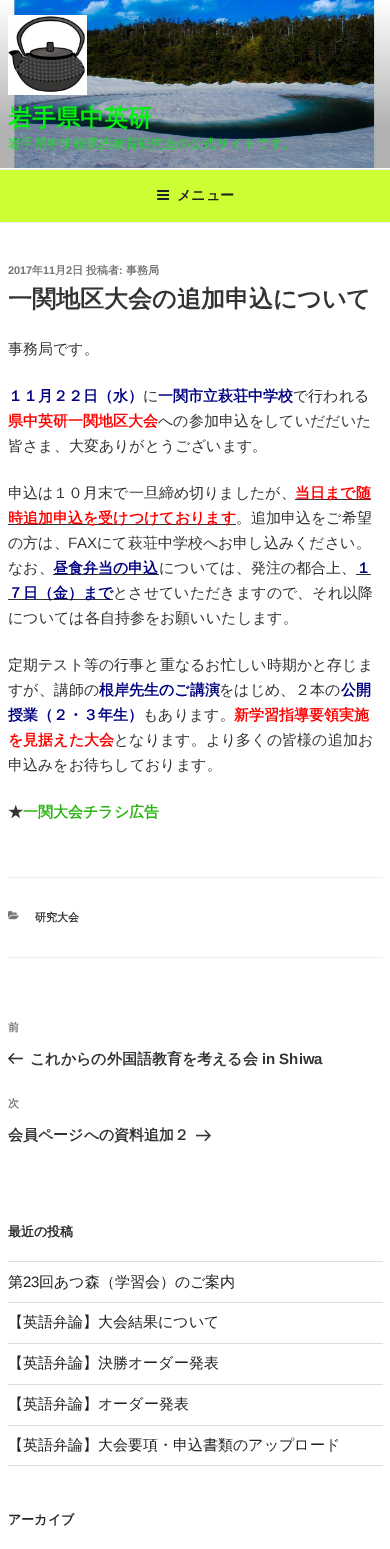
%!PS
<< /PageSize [390 1549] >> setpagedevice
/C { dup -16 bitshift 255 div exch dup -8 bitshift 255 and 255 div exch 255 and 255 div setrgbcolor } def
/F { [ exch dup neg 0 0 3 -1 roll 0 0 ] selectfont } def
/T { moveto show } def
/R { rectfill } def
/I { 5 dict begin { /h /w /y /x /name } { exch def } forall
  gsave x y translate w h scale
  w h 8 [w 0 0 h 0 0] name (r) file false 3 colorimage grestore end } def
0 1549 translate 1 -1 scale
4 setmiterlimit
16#FFFFFF C
0 0 390 1549 R
16#FAFAFA C
0 168 390 1 R
(1.rgb) 0 0 390 168 I
(2.rgb) 8 15 79 80 I
/WenQuanYiZenHei-Bold 24 F
16#02F20E C
(岩手県中英研) 8 126 T
/WenQuanYiZenHei-Medium 13 F
16#1ADD2B C
(岩手県中学校英語教育研究会の公式サイトです。) 8 148 T
16#CCFF33 C
0 170 390 52 R
16#EEEEEE C
0 169 390 1 R
0 222 390 1 R
(3.rgb) 157 190 13 10 I
/WenQuanYiZenHei-Bold 14 F
16#222222 C
(メニュー) 177 200 T
/LiberationSans-Bold 11 F
16#767676 C
(2017) 8 274 T
/WenQuanYiZenHei-Bold 11 F
(年) 32 274 T
/LiberationSans-Bold 11 F
(11) 43 274 T
/WenQuanYiZenHei-Bold 11 F
(月) 55 274 T
/LiberationSans-Bold 11 F
(2) 66 274 T
/WenQuanYiZenHei-Bold 11 F
(日 投稿者) 72 274 T
/LiberationSans-Bold 11 F
(:) 119 274 T
/WenQuanYiZenHei-Bold 11 F
(事務局) 126 274 T
/WenQuanYiZenHei-Bold 24 F
16#333333 C
(一関地区大会の追加申込について) 8 307 T
/WenQuanYiZenHei-Medium 15 F
(事務局です。) 8 354 T
/WenQuanYiZenHei-Bold 15 F
16#000080 C
(１１月２２日（水）) 8 401 T
/WenQuanYiZenHei-Medium 15 F
16#333333 C
(に) 143 401 T
/WenQuanYiZenHei-Bold 15 F
16#000080 C
(一関市立萩荘中学校) 158 401 T
/WenQuanYiZenHei-Medium 15 F
16#333333 C
(で行われる) 293 401 T
/WenQuanYiZenHei-Bold 15 F
16#FF0000 C
(県中英研一関地区大会) 8 426 T
/WenQuanYiZenHei-Medium 15 F
16#333333 C
(への参加申込をしていだだいた) 158 426 T
(皆さま、大変ありがとうございます。) 8 451 T
(申込は１０月末で一旦締め切りましたが、) 8 498 T
295 499 76 1 R
/WenQuanYiZenHei-Bold 15 F
16#FF0000 C
(当日まで随) 295 498 T
16#333333 C
8 524 228 1 R
16#FF0000 C
(時追加申込を受けつけております) 8 523 T
/WenQuanYiZenHei-Medium 15 F
16#333333 C
(。追加申込をご希望) 236 523 T
(の方は、) 8 548 T
/LiberationSans-Regular 15 F
(FAX) 68 548 T
/WenQuanYiZenHei-Medium 15 F
(にて萩荘中学校へお申し込みください。) 97 548 T
(なお、) 8 573 T
53 574 106 1 R
/WenQuanYiZenHei-Bold 15 F
16#000080 C
(昼食弁当の申込) 53 573 T
/WenQuanYiZenHei-Medium 15 F
16#333333 C
(については、発注の都合上、) 159 573 T
/WenQuanYiZenHei-Bold 15 F
16#000080 C
(１) 356 573 T
16#333333 C
356 574 15 1 R
8 599 105 1 R
16#000080 C
(７日（金）まで) 8 598 T
/WenQuanYiZenHei-Medium 15 F
16#333333 C
(とさせていただきますので、それ以降) 113 598 T
(については各自持参をお願いいたします。) 8 623 T
(定期テスト等の行事と重なるお忙しい時期かと存じま) 8 670 T
(すが、講師の) 8 695 T
/WenQuanYiZenHei-Bold 15 F
16#000080 C
(根岸先生のご講演) 99 695 T
/WenQuanYiZenHei-Medium 15 F
16#333333 C
(をはじめ、２本の) 219 695 T
/WenQuanYiZenHei-Bold 15 F
16#000080 C
(公開) 341 695 T
(授業（２・３年生）) 8 720 T
/WenQuanYiZenHei-Medium 15 F
16#333333 C
(もあります。) 143 720 T
/WenQuanYiZenHei-Bold 15 F
16#FF0000 C
(新学習指導要領実施) 234 720 T
(を見据えた大会) 8 745 T
/WenQuanYiZenHei-Medium 15 F
16#333333 C
(となります。より多くの皆様の追加お) 114 745 T
(申込みをお待ちしております。) 8 770 T
/WenQuanYiZenHei-Bold 15 F
(★) 8 817 T
16#26B50D C
(一関大会チラシ広告) 23 817 T
16#EEEEEE C
8 877 375 1 R
8 957 375 1 R
(4.rgb) 8 911 11 9 I
/WenQuanYiZenHei-Bold 11 F
16#333333 C
(研究大会) 35 921 T
16#767676 C
(前) 8 1031 T
(5.rgb) 8 1053 15 11 I
/WenQuanYiZenHei-Bold 15 F
16#333333 C
(これからの外国語教育を考える会) 30 1064 T
/LiberationSans-Bold 15 F
(in Shiwa) 262 1064 T
/WenQuanYiZenHei-Bold 11 F
16#767676 C
(次) 8 1107 T
/WenQuanYiZenHei-Bold 15 F
16#333333 C
(会員ページへの資料追加２) 8 1140 T
(6.rgb) 196 1130 15 12 I
/WenQuanYiZenHei-Bold 13 F
16#222222 C
(最近の投稿) 8 1236 T
16#DDDDDD C
8 1261 375 1 R
8 1302 375 1 R
/WenQuanYiZenHei-Medium 15 F
16#222222 C
(第) 8 1287 T
/LiberationSans-Regular 15 F
(23) 23 1287 T
/WenQuanYiZenHei-Medium 15 F
(回あつ森（学習会）のご案内) 39 1287 T
16#DDDDDD C
8 1343 375 1 R
16#222222 C
(【英語弁論】大会結果について) 8 1327 T
16#DDDDDD C
8 1384 375 1 R
16#222222 C
(【英語弁論】決勝オーダー発表) 8 1368 T
16#DDDDDD C
8 1425 375 1 R
16#222222 C
(【英語弁論】オーダー発表) 8 1409 T
16#DDDDDD C
8 1465 375 1 R
16#222222 C
(【英語弁論】大会要項・申込書類のアップロード) 8 1450 T
/WenQuanYiZenHei-Bold 13 F
(アーカイブ) 8 1524 T
showpage
